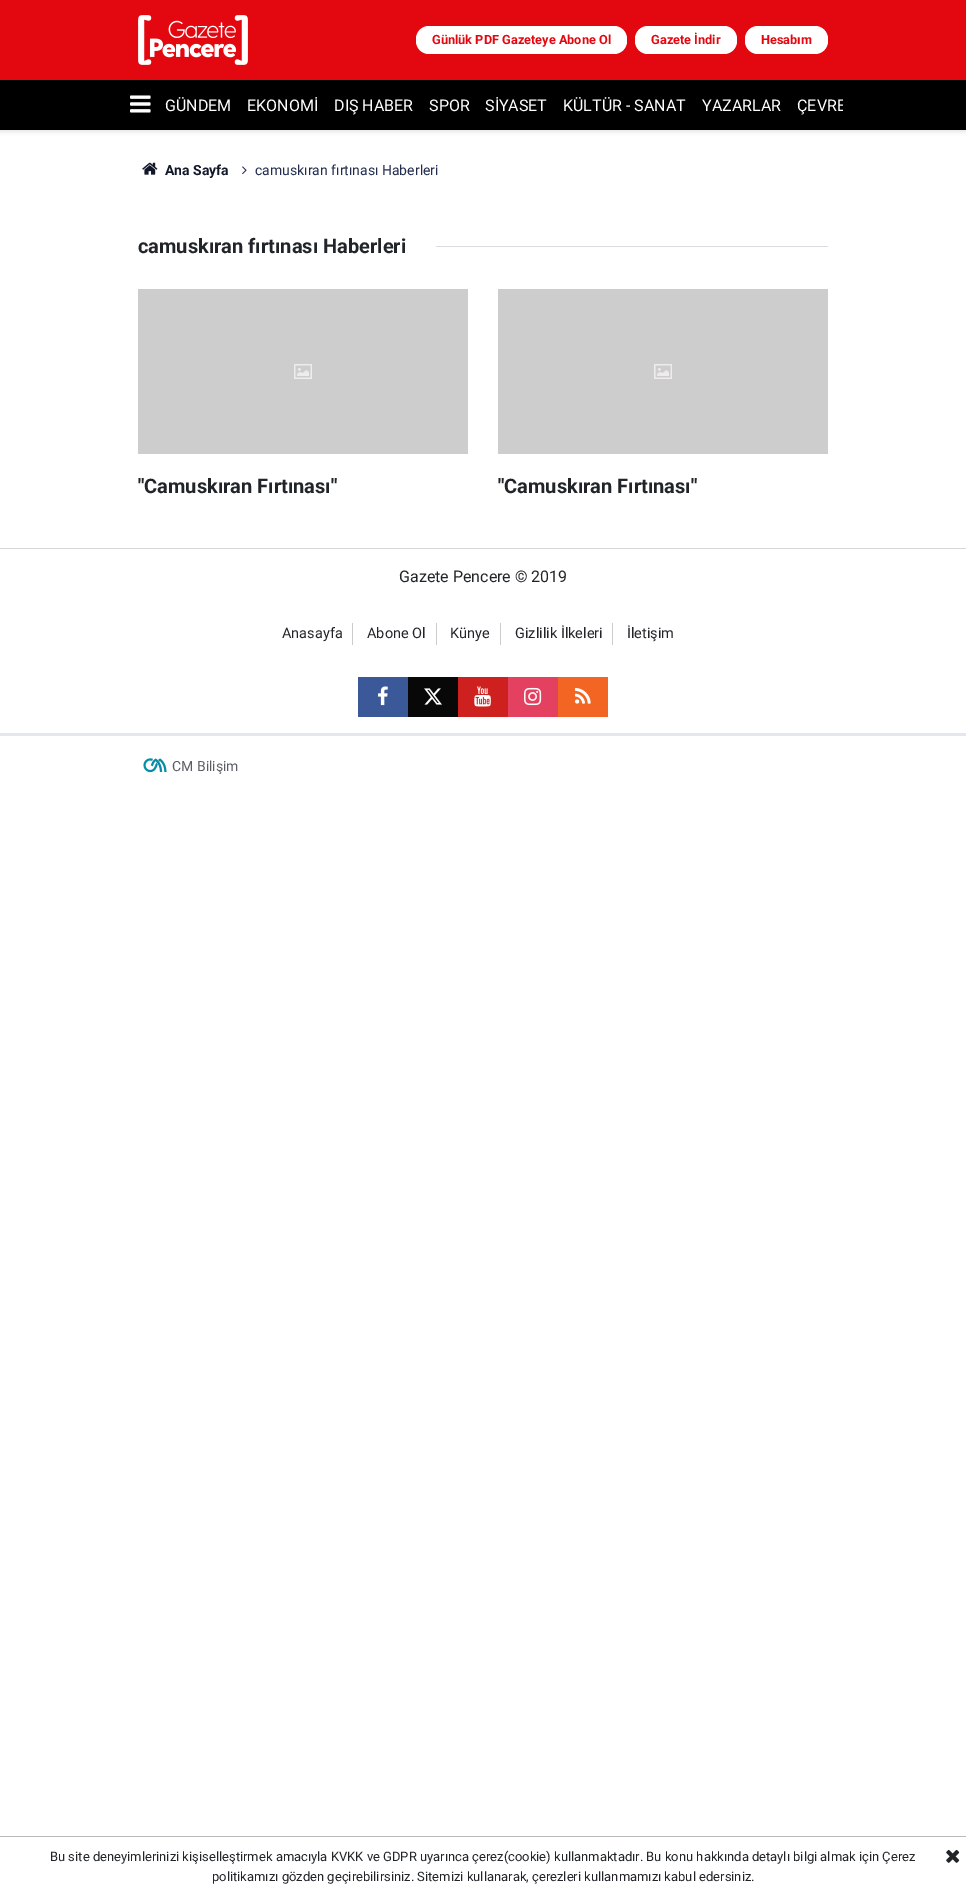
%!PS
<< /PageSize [966 1896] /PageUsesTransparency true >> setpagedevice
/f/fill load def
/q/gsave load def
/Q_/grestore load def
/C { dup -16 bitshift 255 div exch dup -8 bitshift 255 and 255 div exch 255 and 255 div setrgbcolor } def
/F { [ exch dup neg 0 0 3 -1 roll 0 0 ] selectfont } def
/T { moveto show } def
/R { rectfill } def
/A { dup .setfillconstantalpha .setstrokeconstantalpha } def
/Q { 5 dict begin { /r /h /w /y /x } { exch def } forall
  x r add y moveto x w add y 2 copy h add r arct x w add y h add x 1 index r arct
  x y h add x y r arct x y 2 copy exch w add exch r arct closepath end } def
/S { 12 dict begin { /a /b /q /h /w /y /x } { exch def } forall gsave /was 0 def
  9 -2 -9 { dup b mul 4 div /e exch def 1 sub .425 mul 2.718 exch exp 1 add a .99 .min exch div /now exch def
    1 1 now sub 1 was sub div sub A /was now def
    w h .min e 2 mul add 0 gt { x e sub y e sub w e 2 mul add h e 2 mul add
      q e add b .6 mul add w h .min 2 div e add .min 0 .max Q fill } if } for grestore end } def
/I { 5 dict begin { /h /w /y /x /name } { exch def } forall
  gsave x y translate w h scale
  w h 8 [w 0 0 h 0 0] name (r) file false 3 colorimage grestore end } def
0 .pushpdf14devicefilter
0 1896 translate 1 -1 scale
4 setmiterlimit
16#FFFFFF C
0 0 966 1896 R
16#000000 C
0 2 966 130 0 2 .1 S
16#E30710 C
0 0 966 80 R
(1.rgb) 138 15 110 50 I
16#FFFFFF C
416 26 211 28 13 Q f
/Roboto-Bold 12.75 F
16#E30710 C
(Günlük PDF Gazeteye Abone Ol) 432 44 T
16#FFFFFF C
635 26 102 28 13 Q f
16#E30710 C
(Gazete İndir) 651 44 T
16#FFFFFF C
745 26 83 28 13 Q f
16#E30710 C
(Hesabım) 761 44 T
16#000000 C
0 80 966 50 R
(2.rgb) 130 95 21 18 I
/Roboto-Regular 16 F
16#FFFFFF C
(GÜNDEM) 165 111 T
(EKONOMİ) 247 111 T
(DIŞ HABER) 334 111 T
(SPOR) 429 111 T
(SİYASET) 485 111 T
(KÜLTÜR - SANAT) 563 111 T
(YAZARLAR) 702 111 T
q
157 80 686 50 rectclip
(ÇEVRE) 797 111 T
Q_
(3.rgb) 142 162 16 13 I
/Roboto-Bold 14 F
16#12182A C
(Ana Sayfa) 165 175 T
(4.rgb) 242 166 5 9 I
/Roboto-Regular 14 F
16#212C4E C
(camuskıran fırtınası Haberleri) 255 175 T
/Roboto-Bold 20 F
16#212529 C
(camuskıran fırtınası Haberleri) 138 253 T
16#D9DBE2 C
436 246 392 1 R
(5.rgb) 138 289 330 165 I
16#212529 C
("Camuskıran Fırtınası") 138 493 T
(6.rgb) 498 289 330 165 I
("Camuskıran Fırtınası") 498 493 T
16#D6D7D9 C
0 548 966 1 R
16#E4E7F0 C
0 733 966 3 R
/Roboto-Regular 16 F
16#212529 C
(Gazete Pencere © 2019) 399 582 T
16#CCCCCC C
352 623 1 22 R
/Roboto-Regular 14.5 F
16#212529 C
(Anasayfa) 282 638 T
16#CCCCCC C
436 623 1 22 R
16#212529 C
(Abone Ol) 367 638 T
16#CCCCCC C
500 623 1 22 R
16#212529 C
(Künye) 450 638 T
16#CCCCCC C
612 623 1 22 R
16#212529 C
(Gizlilik İlkeleri) 515 638 T
(İletişim) 627 638 T
16#3B5999 C
358 677 50 40 R
(7.rgb) 378 686 10 20 I
16#080808 C
408 677 50 40 R
(8.rgb) 424 688 18 17 I
16#CD201F C
458 677 50 40 R
(9.rgb) 474 686 17 21 I
16#E4405F C
508 677 50 40 R
(10.rgb) 524 687 18 19 I
16#F26522 C
558 677 50 40 R
(11.rgb) 575 687 16 17 I
(12.rgb) 143 758 24 15 I
/Roboto-Regular 14 F
16#5A5C67 C
(CM Bilişim) 172 771 T
16#B9B9B9 C
0 1836 966 1 R
/Roboto-Regular 13 F
16#212529 C
(Bu site deneyimlerinizi kişiselleştirmek amacıyla KVKK ve GDPR uyarınca çerez\(cookie\) kullanmaktadır. Bu konu hakkında detaylı bilgi almak için Çerez) 50 1861 T
(politikamızı gözden geçirebilirsiniz. Sitemizi kullanarak, çerezleri kullanmamızı kabul edersiniz.) 212 1881 T
(13.rgb) 946 1849 14 14 I
.poppdf14devicefilter showpage
